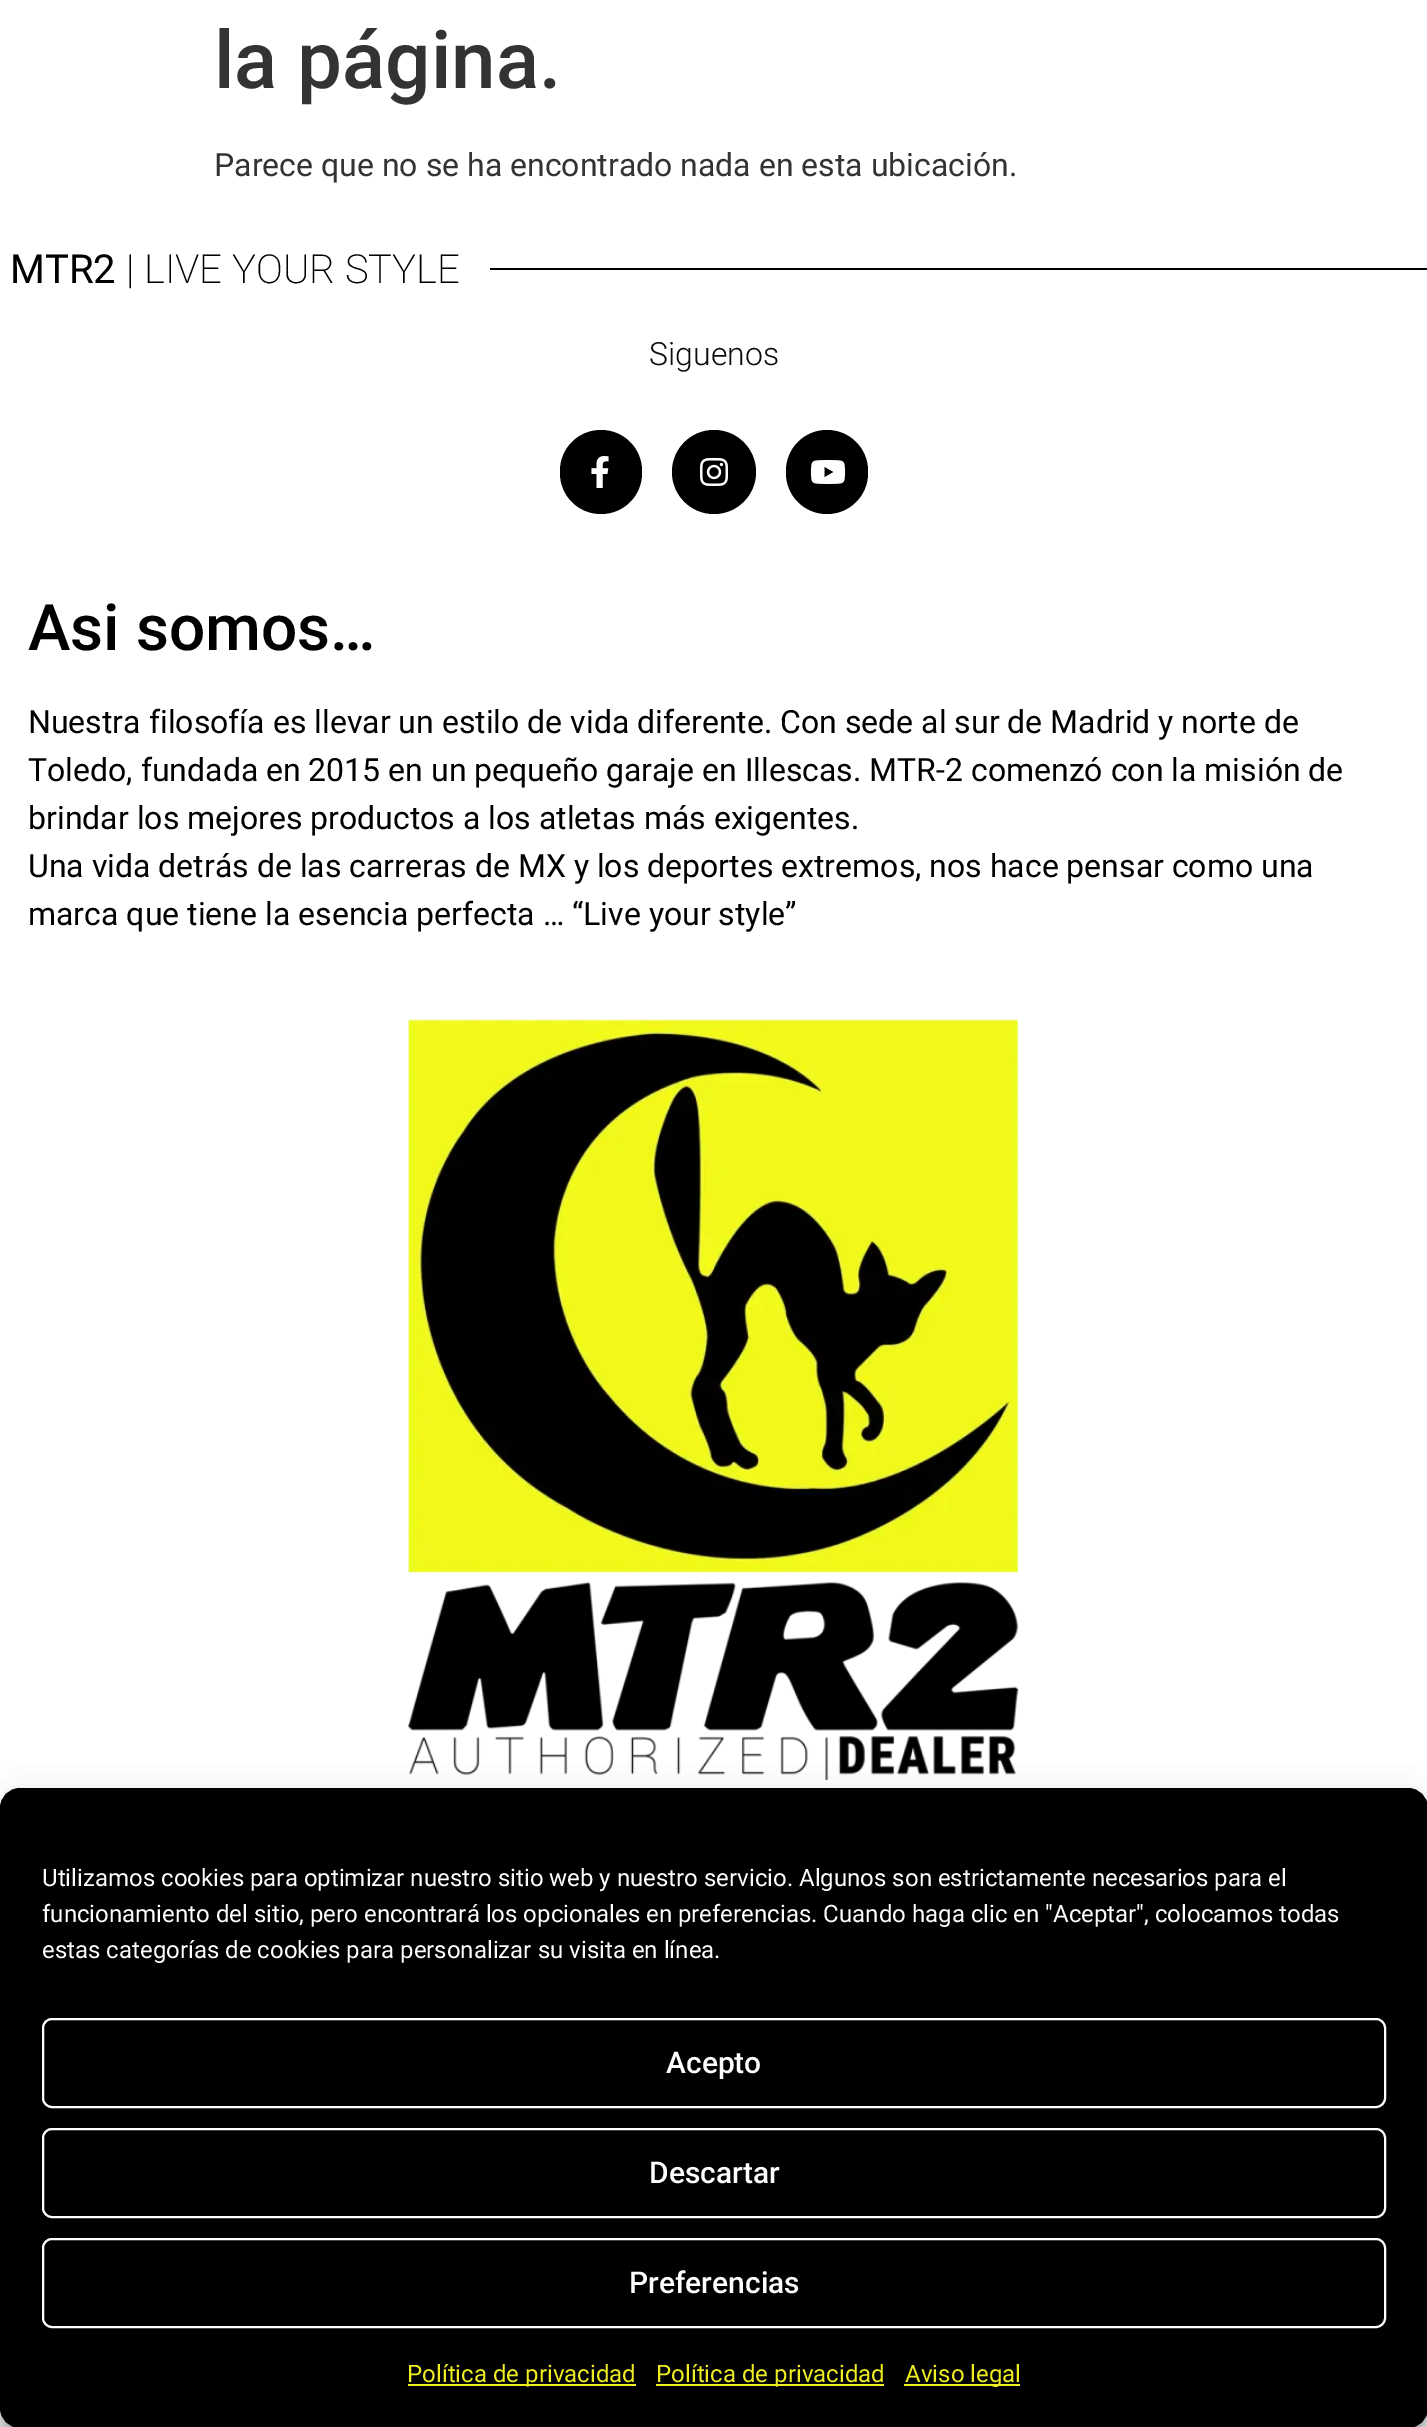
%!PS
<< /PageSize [1427 2427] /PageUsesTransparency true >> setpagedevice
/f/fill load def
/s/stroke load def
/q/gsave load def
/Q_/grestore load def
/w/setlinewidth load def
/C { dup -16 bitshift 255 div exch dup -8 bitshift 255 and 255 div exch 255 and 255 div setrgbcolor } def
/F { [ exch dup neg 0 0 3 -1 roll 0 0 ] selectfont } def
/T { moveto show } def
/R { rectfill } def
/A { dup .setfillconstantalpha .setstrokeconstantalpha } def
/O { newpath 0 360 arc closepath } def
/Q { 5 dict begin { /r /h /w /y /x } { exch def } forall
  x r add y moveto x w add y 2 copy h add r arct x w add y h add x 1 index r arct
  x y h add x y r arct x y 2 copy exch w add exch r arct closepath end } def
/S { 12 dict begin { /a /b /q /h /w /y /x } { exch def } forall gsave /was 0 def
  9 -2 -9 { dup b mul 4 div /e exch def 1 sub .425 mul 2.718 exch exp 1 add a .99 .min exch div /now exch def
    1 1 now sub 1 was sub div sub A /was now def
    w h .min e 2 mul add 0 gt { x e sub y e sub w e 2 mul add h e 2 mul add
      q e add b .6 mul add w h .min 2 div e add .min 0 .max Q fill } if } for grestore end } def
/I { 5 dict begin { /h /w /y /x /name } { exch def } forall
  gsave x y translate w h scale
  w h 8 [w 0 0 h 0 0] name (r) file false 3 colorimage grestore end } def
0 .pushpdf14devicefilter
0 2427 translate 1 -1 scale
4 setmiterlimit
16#FFFFFF C
0 0 1427 2427 R
/Roboto-Medium 80 F
16#333333 C
(la página.) 214 88 T
/Roboto-Regular 32 F
(Parece que no se ha encontrado nada en esta ubicación.) 214 176 T
/Roboto-Regular 40 F
16#000000 C
(MTR2) 10 283 T
/Roboto-ExtraLight 40 F
(| LIVE YOUR STYLE) 126 283 T
490 268 937 2 R
/Roboto-Light 32 F
16#0C0C0C C
(Siguenos) 649 365 T
16#000000 C
560 430 82 84 41 Q f
(1.rgb) 591 456 18 32 I
714 472 42 O f
(2.rgb) 700 457 29 29 I
786 430 82 84 41 Q f
(3.rgb) 810 460 36 24 I
/Roboto-Medium 64 F
(Asi somos…) 28 650 T
/Roboto-Regular 32 F
(Nuestra filosofía es llevar un estilo de vida diferente. Con sede al sur de Madrid y norte de) 28 733 T
(Toledo, fundada en 2015 en un pequeño garaje en Illescas. MTR-2 comenzó con la misión de) 28 781 T
(brindar los mejores productos a los atletas más exigentes.) 28 829 T
(Una vida detrás de las carreras de MX y los deportes extremos, nos hace pensar como una) 28 877 T
(marca que tiene la esencia perfecta … “Live your style”) 28 925 T
(4.rgb) 408 1019 611 761 I
0 1800 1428 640 20 6 .23 S
0 1808 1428 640 20 20 .19 S
1 1789 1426 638 19 Q q f Q_
2 w
s
/Roboto-Regular 24 F
16#FFFFFF C
(Utilizamos cookies para optimizar nuestro sitio web y nuestro servicio. Algunos son estrictamente necesarios para el) 42 1886 T
(funcionamiento del sitio, pero encontrará los opcionales en preferencias. Cuando haga clic en "Aceptar", colocamos todas) 42 1922 T
(estas categorías de cookies para personalizar su visita en línea.) 42 1958 T
43 2019 1342 88 9 Q s
/Roboto-Medium 30 F
(Acepto) 666 2073 T
43 2129 1342 88 9 Q s
(Descartar) 649 2183 T
43 2239 1342 88 9 Q s
(Preferencias) 629 2293 T
16#EEEE22 C
408 2384 228 2 R
/Roboto-Regular 24 F
(Política de privacidad) 407 2382 T
656 2384 228 2 R
(Política de privacidad) 656 2382 T
904 2384 116 2 R
(Aviso legal) 905 2382 T
.poppdf14devicefilter showpage
